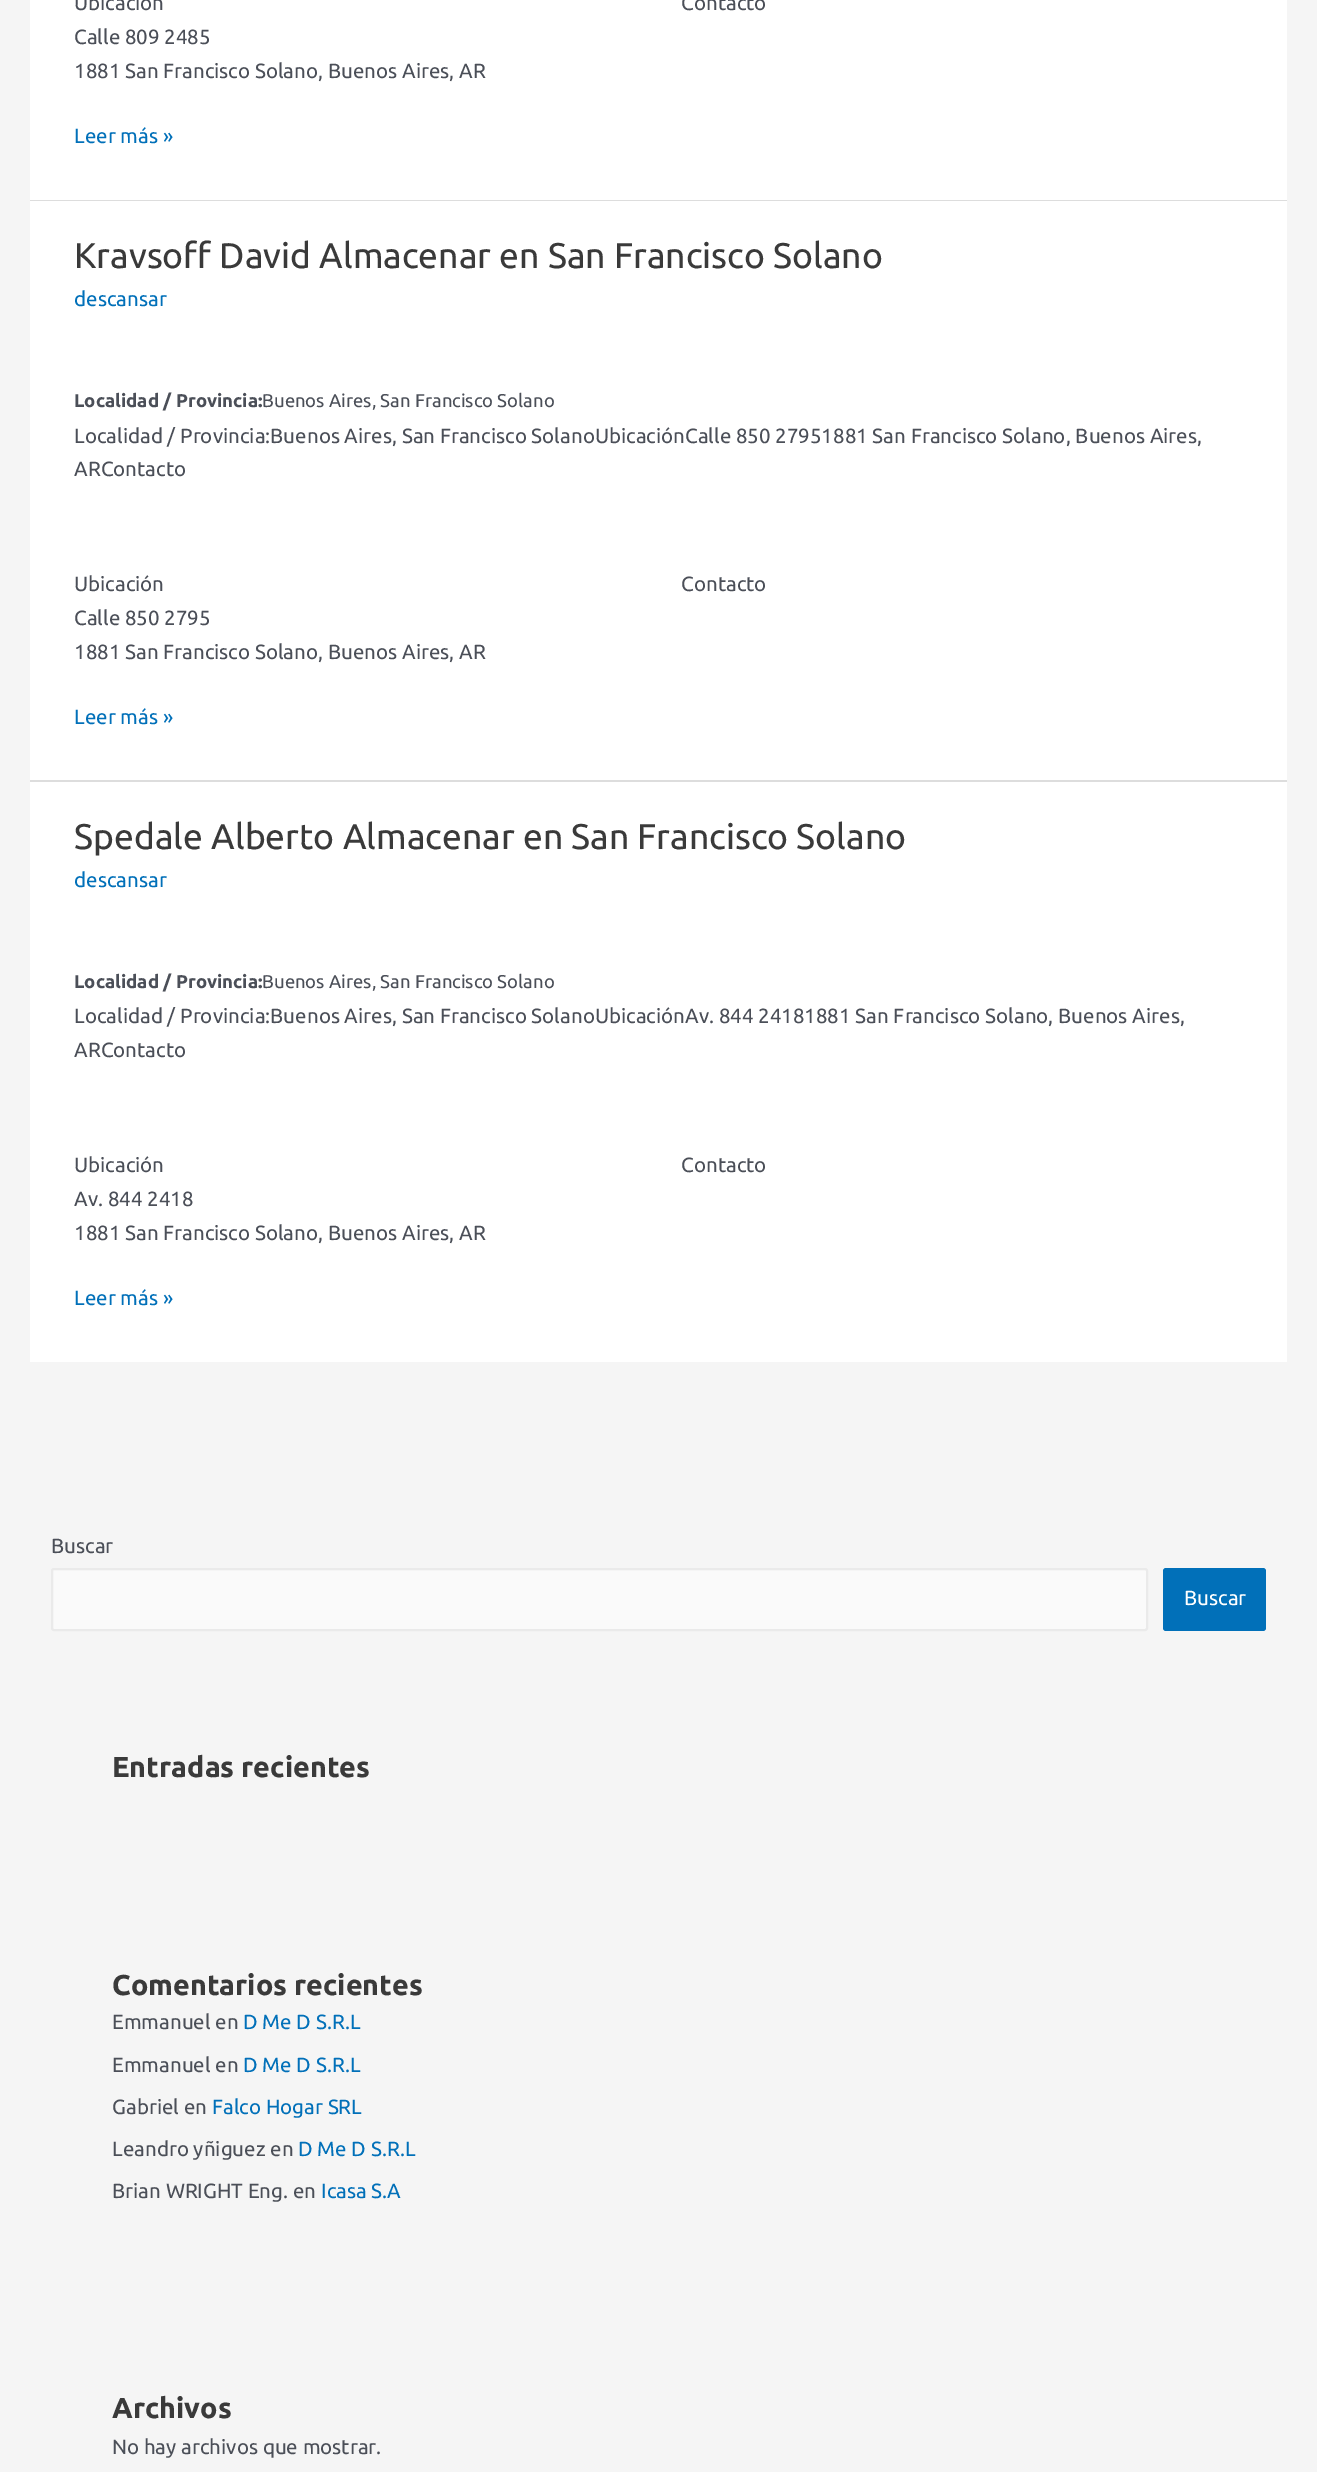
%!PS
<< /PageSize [1317 2472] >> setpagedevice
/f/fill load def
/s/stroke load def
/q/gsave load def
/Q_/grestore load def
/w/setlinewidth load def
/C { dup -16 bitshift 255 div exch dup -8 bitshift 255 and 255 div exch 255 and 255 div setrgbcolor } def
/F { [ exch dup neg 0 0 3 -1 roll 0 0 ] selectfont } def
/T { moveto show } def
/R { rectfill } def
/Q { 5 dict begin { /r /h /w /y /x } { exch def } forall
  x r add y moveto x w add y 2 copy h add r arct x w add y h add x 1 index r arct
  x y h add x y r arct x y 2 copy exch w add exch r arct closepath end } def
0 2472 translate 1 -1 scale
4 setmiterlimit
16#F5F5F5 C
0 0 1317 2472 R
16#FFFFFF C
30 0 1257 200 R
16#DDDDDD C
30 200 1257 1 R
/Ubuntu-Regular 20.52 F
16#4B4F58 C
(Ubicación) 74 10 T
(Calle 809 2485) 74 44 T
(1881 San Francisco Solano, Buenos Aires, AR) 74 78 T
(Contacto) 681 10 T
16#0170B9 C
(Leer más ») 74 143 T
16#FFFFFF C
30 201 1257 579 R
16#DDDDDD C
30 780 1257 2 R
/Ubuntu-Regular 35.6 F
16#3A3A3A C
(Kravsoff David Almacenar en San Francisco Solano) 74 268 T
/Ubuntu-Regular 20.52 F
16#0170B9 C
(descansar) 74 306 T
/Ubuntu-Bold 18.5 F
16#4B4F58 C
(Localidad / Provincia:) 74 407 T
/Ubuntu-Regular 18.5 F
(Buenos Aires, San Francisco Solano) 262 407 T
/Ubuntu-Regular 20.52 F
(Localidad / Provincia:Buenos Aires, San Francisco SolanoUbicaciónCalle 850 27951881 San Francisco Solano, Buenos Aires,) 74 443 T
(ARContacto) 74 476 T
(Ubicación) 74 591 T
(Calle 850 2795) 74 625 T
(1881 San Francisco Solano, Buenos Aires, AR) 74 659 T
(Contacto) 681 591 T
16#0170B9 C
(Leer más ») 74 724 T
16#FFFFFF C
30 782 1257 580 R
/Ubuntu-Regular 35.6 F
16#3A3A3A C
(Spedale Alberto Almacenar en San Francisco Solano) 74 849 T
/Ubuntu-Regular 20.52 F
16#0170B9 C
(descansar) 74 887 T
/Ubuntu-Bold 18.5 F
16#4B4F58 C
(Localidad / Provincia:) 74 988 T
/Ubuntu-Regular 18.5 F
(Buenos Aires, San Francisco Solano) 262 988 T
/Ubuntu-Regular 20.52 F
(Localidad / Provincia:Buenos Aires, San Francisco SolanoUbicaciónAv. 844 24181881 San Francisco Solano, Buenos Aires,) 74 1023 T
(ARContacto) 74 1057 T
(Ubicación) 74 1172 T
(Av. 844 2418) 74 1206 T
(1881 San Francisco Solano, Buenos Aires, AR) 74 1240 T
(Contacto) 681 1172 T
16#0170B9 C
(Leer más ») 74 1305 T
16#4B4F58 C
(Buscar) 51 1553 T
16#FAFAFA C
52 1569 1095 61 2 Q q f Q_
16#EAEAEA C
2 w
s
16#0170B9 C
1163 1568 103 63 3 Q f
16#FFFFFF C
(Buscar) 1184 1605 T
/Ubuntu-Bold 28.75 F
16#3A3A3A C
(Entradas recientes) 112 1777 T
(Comentarios recientes) 112 1995 T
/Ubuntu-Regular 20.52 F
16#4B4F58 C
(Emmanuel en) 112 2029 T
16#0170B9 C
(D Me D S.R.L) 243 2029 T
16#4B4F58 C
(Emmanuel en) 112 2072 T
16#0170B9 C
(D Me D S.R.L) 243 2072 T
16#4B4F58 C
(Gabriel en) 112 2114 T
16#0170B9 C
(Falco Hogar SRL) 212 2114 T
16#4B4F58 C
(Leandro yñiguez en) 112 2156 T
16#0170B9 C
(D Me D S.R.L) 298 2156 T
16#4B4F58 C
(Brian WRIGHT Eng. en) 112 2198 T
16#0170B9 C
(Icasa S.A) 321 2198 T
/Ubuntu-Bold 28.75 F
16#3A3A3A C
(Archivos) 112 2418 T
/Ubuntu-Regular 20.52 F
16#4B4F58 C
(No hay archivos que mostrar.) 112 2454 T
showpage
